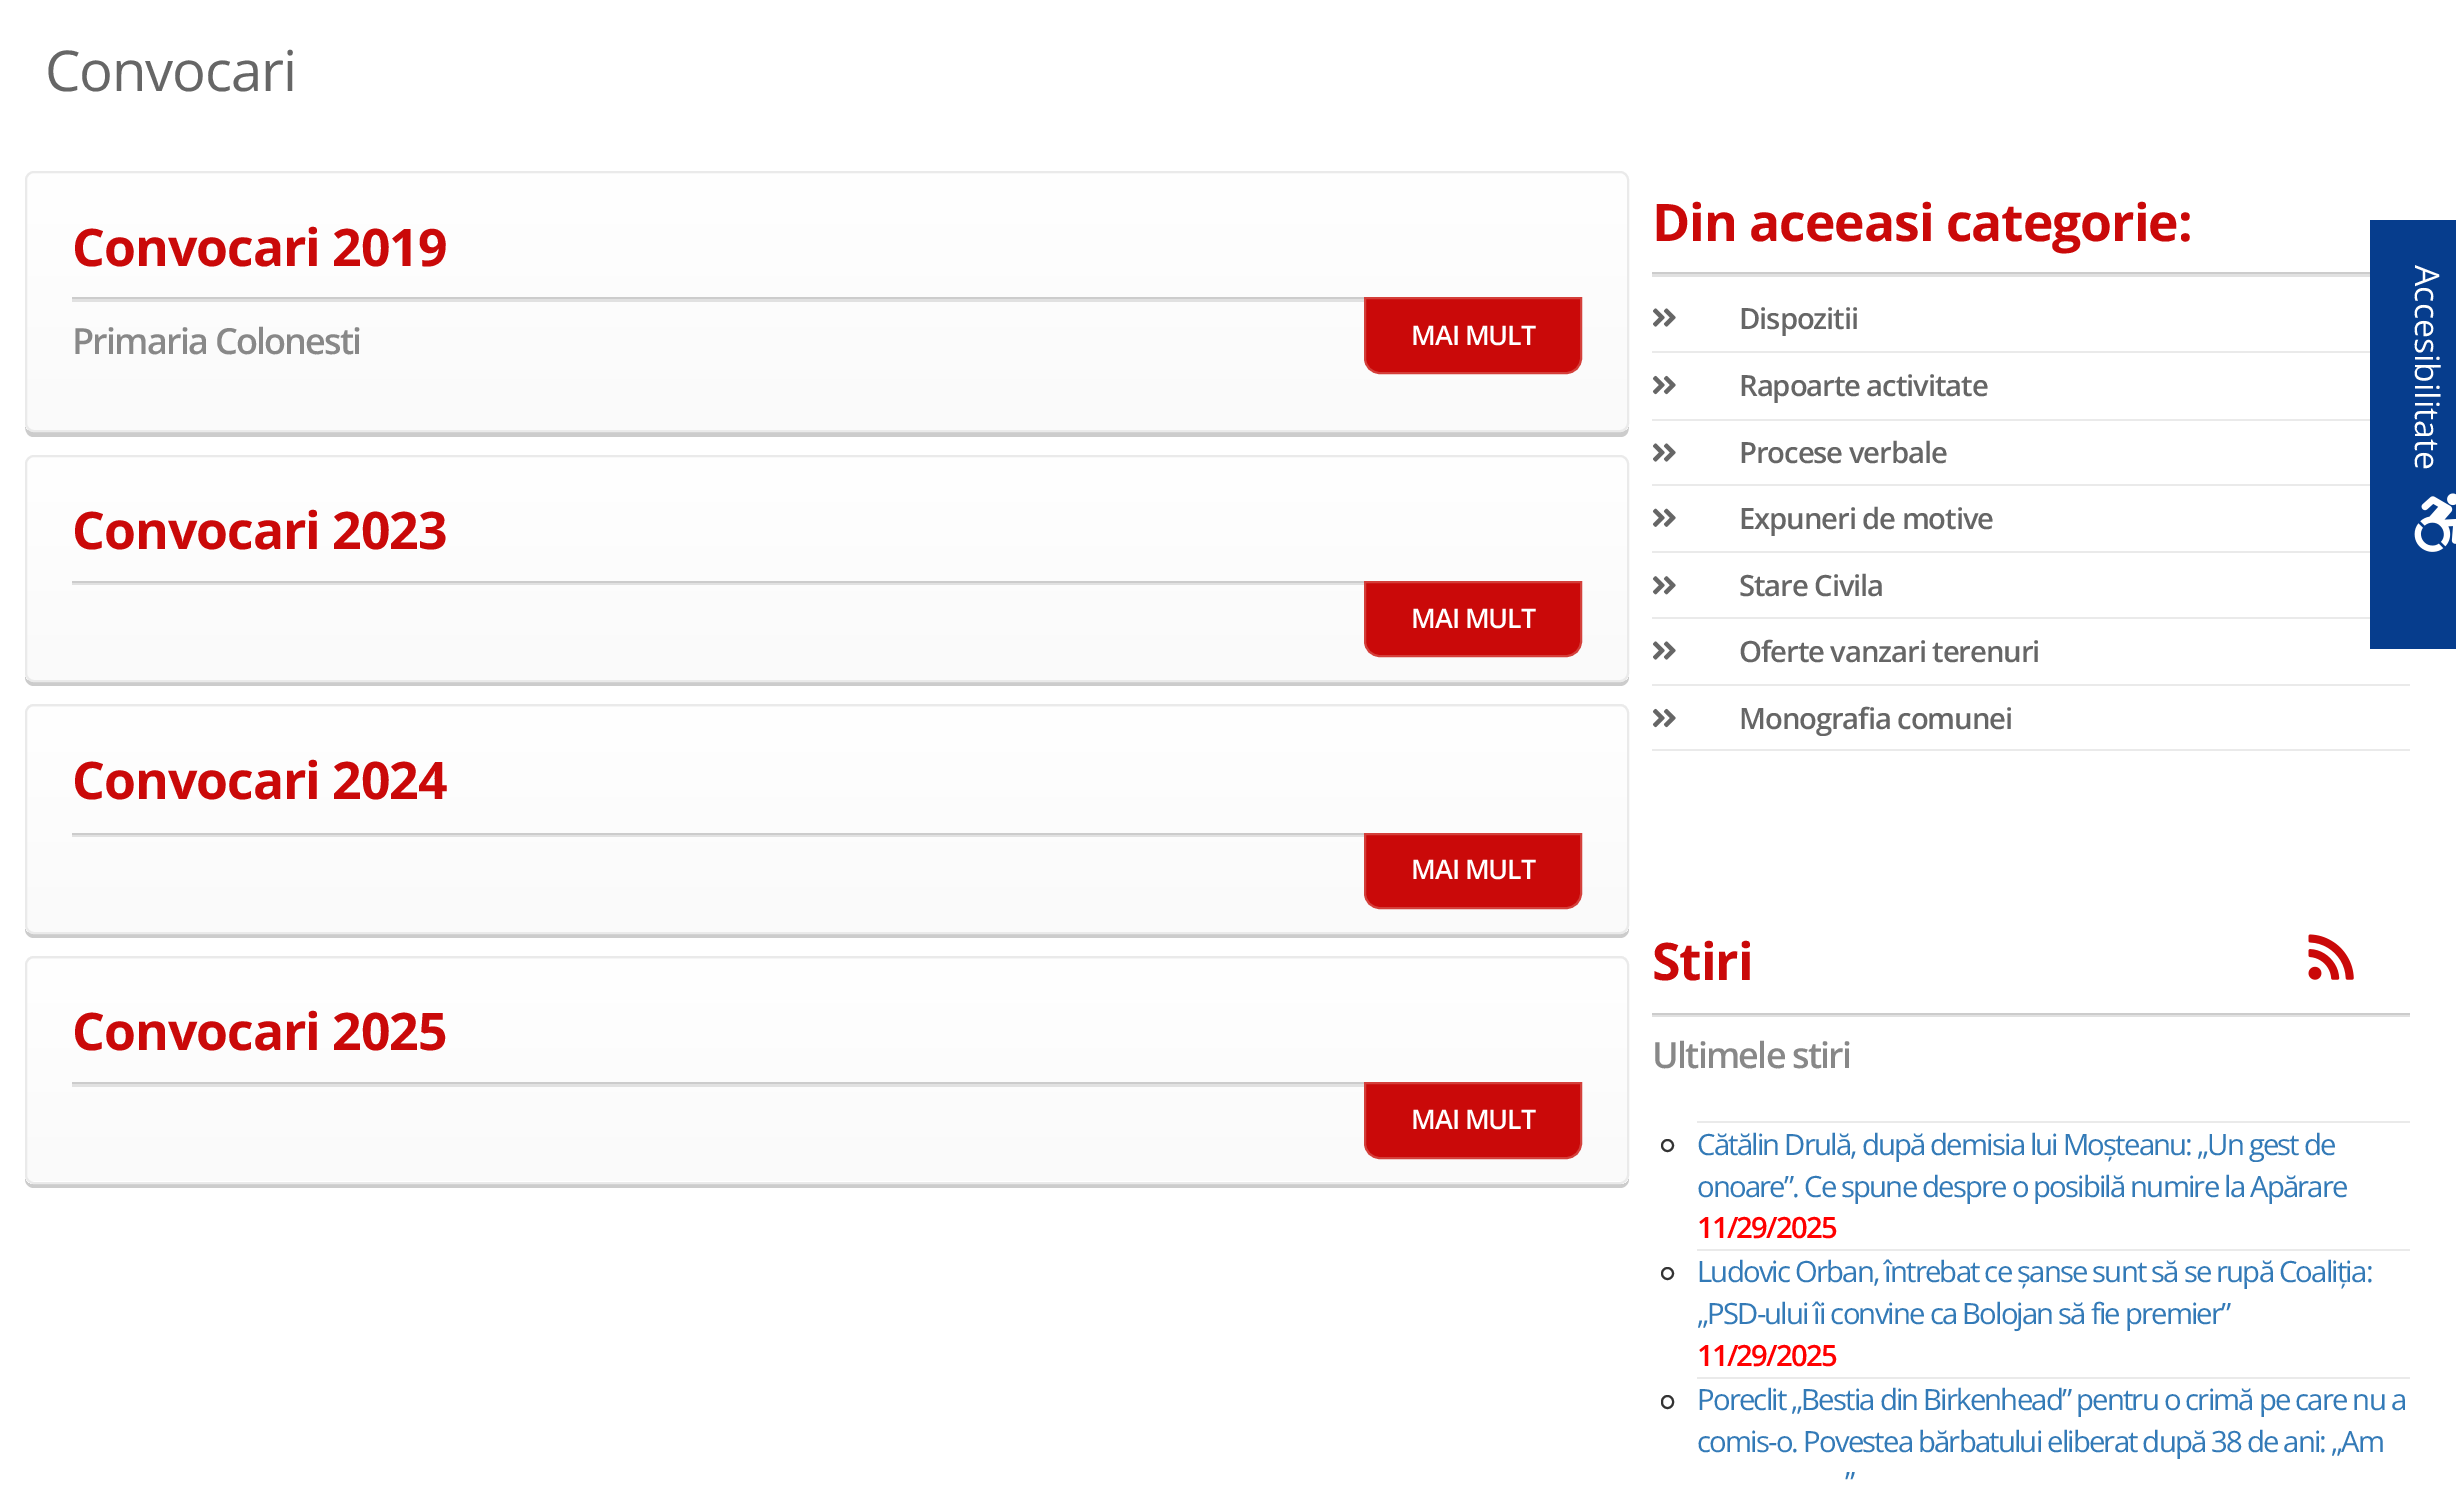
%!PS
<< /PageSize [2456 1485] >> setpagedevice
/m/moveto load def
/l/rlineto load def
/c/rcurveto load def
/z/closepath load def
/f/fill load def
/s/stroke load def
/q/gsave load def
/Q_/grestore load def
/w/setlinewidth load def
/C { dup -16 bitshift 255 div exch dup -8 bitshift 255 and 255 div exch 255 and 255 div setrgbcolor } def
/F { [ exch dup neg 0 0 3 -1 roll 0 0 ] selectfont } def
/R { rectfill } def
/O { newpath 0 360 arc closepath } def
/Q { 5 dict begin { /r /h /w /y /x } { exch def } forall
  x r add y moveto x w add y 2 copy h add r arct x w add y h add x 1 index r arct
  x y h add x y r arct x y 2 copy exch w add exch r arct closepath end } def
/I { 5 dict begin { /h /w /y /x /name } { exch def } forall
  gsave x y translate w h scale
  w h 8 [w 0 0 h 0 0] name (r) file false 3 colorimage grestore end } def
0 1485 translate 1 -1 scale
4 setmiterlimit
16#FFFFFF C
0 0 2456 1485 R
/OpenSans-Regular 56.25 F
16#666666 C
45 91 m -1.1 0 (Convocari) ashow
16#CCCCCC C
25 425 m 0 6 2 12 9 12 c 1586 0 l 9 0 9 -8 9 -14 c 0 5 -4 9 -9 9 c -1586 0 l -4 0 -8 -3 -9 -7 c z f
q
25 171 1604 261 9 Q clip newpath
q 25 173 m 1604 0 l 0 257 l -1604 0 l z clip newpath
<< /ShadingType 2 /ColorSpace /DeviceRGB /Coords [827 173 827 430] /Extend [true true] /Function << /FunctionType 2 /Domain [0 1] /C0 [1 1 1] /C1 [.98 .98 .98] /N 1 >> >> shfill Q_
Q_
16#EAEAEA C
2 w
26 172 1602 259 8 Q s
16#E1E1E1 C
72 299 m 0 3 l 1510 0 l 0 -81 l 0 78 l z f
16#CCCCCC C
72 297 1292 2 R
/OpenSans-Bold 51.75 F
16#CA0909 C
72 266 m -1.1 0 (Convocari 2019) ashow
/OpenSans-SemiBold 36 F
16#888888 C
72 354 m -1.8 0 (Primaria Colonesti) ashow
16#CA0909 C
1365 298 m 216 0 l 0 60 l 0 8.5 -6.5 15 -15 15 c -186 0 l -8.5 0 -15 -6.5 -15 -15 c z q f Q_
16#D43F3A C
s
/OpenSans-SemiBold 27 F
16#FFFFFF C
1411 345 m -1.1 0 (MAI MULT) ashow
16#CCCCCC C
25 675 m 0 2 l 0 5 4 9 9 9 c 1586 0 l 5 0 9 -4 9 -9 c 0 -4 l 0 5 -4 9 -9 9 c -1586 0 l -4 0 -8 -3 -9 -7 c z f
q
25 455 1604 227 9 Q clip newpath
q 25 457 m 1604 0 l 0 223 l -1604 0 l z clip newpath
<< /ShadingType 2 /ColorSpace /DeviceRGB /Coords [827 457 827 680] /Extend [true true] /Function << /FunctionType 2 /Domain [0 1] /C0 [1 1 1] /C1 [.98 .98 .98] /N 1 >> >> shfill Q_
Q_
16#EAEAEA C
26 456 1602 225 8 Q s
16#E1E1E1 C
72 583 m 0 2 l 1510 0 l 0 -81 l 0 79 l z f
16#CCCCCC C
72 581 1292 2 R
/OpenSans-Bold 51.75 F
16#CA0909 C
72 549 m -1.1 0 (Convocari 2023) ashow
1365 582 m 216 0 l 0 59 l 0 8.5 -6.5 15 -15 15 c -186 0 l -8.5 0 -15 -6.5 -15 -15 c z q f Q_
16#D43F3A C
s
/OpenSans-SemiBold 27 F
16#FFFFFF C
1411 628 m -1.1 0 (MAI MULT) ashow
16#CCCCCC C
25 927 m 0 2 l 0 5 4 9 9 9 c 1586 0 l 5 0 9 -4 9 -9 c 0 -4 l 0 5 -4 9 -9 9 c -1586 0 l -4 0 -8 -3 -9 -7 c z f
q
25 704 1604 230 9 Q clip newpath
q 25 704 m 1604 0 l 0 3 l -1604 0 l z clip newpath
<< /ShadingType 2 /ColorSpace /DeviceRGB /Coords [827 481 827 707] /Extend [true true] /Function << /FunctionType 2 /Domain [0 1] /C0 [1 1 1] /C1 [.98 .98 .98] /N 1 >> >> shfill Q_
q 25 707 m 1604 0 l 0 225 l -1604 0 l z clip newpath
<< /ShadingType 2 /ColorSpace /DeviceRGB /Coords [827 706 827 932] /Extend [true true] /Function << /FunctionType 2 /Domain [0 1] /C0 [1 1 1] /C1 [.98 .98 .98] /N 1 >> >> shfill Q_
Q_
16#EAEAEA C
26 705 1602 228 8 Q s
16#E1E1E1 C
72 835 m 0 2 l 1510 0 l 0 -83 l 0 81 l z f
16#CCCCCC C
72 833 1292 2 R
/OpenSans-Bold 51.75 F
16#CA0909 C
72 799 m -1.1 0 (Convocari 2024) ashow
1365 834 m 216 0 l 0 59 l 0 8.5 -6.5 15 -15 15 c -186 0 l -8.5 0 -15 -6.5 -15 -15 c z q f Q_
16#D43F3A C
s
/OpenSans-SemiBold 27 F
16#FFFFFF C
1411 879 m -1.1 0 (MAI MULT) ashow
16#CCCCCC C
25 1177 m 0 2 l 0 5 4 9 9 9 c 1586 0 l 5 0 9 -4 9 -9 c 0 -5 l 0 5 -4 10 -9 10 c -1586 0 l -4 0 -8 -3 -9 -7 c z f
q
25 956 1604 228 9 Q clip newpath
q 25 956 m 1604 0 l 0 3 l -1604 0 l z clip newpath
<< /ShadingType 2 /ColorSpace /DeviceRGB /Coords [827 736 827 959] /Extend [true true] /Function << /FunctionType 2 /Domain [0 1] /C0 [1 1 1] /C1 [.98 .98 .98] /N 1 >> >> shfill Q_
q 25 959 m 1604 0 l 0 222 l -1604 0 l z clip newpath
<< /ShadingType 2 /ColorSpace /DeviceRGB /Coords [827 958 827 1181] /Extend [true true] /Function << /FunctionType 2 /Domain [0 1] /C0 [1 1 1] /C1 [.98 .98 .98] /N 1 >> >> shfill Q_
q 25 1181 m 1604 0 l 0 3 l -1604 0 l z clip newpath
<< /ShadingType 2 /ColorSpace /DeviceRGB /Coords [827 1181 827 1404] /Extend [true true] /Function << /FunctionType 2 /Domain [0 1] /C0 [1 1 1] /C1 [.98 .98 .98] /N 1 >> >> shfill Q_
Q_
16#EAEAEA C
26 957 1602 226 8 Q s
16#E1E1E1 C
72 1084 m 0 3 l 1510 0 l 0 -81 l 0 78 l z f
16#CCCCCC C
72 1082 1292 2 R
/OpenSans-Bold 51.75 F
16#CA0909 C
72 1050 m -1.1 0 (Convocari 2025) ashow
1365 1083 m 216 0 l 0 60 l 0 8.5 -6.5 15 -15 15 c -186 0 l -8.5 0 -15 -6.5 -15 -15 c z q f Q_
16#D43F3A C
s
/OpenSans-SemiBold 27 F
16#FFFFFF C
1411 1129 m -1.1 0 (MAI MULT) ashow
16#E1E1E1 C
1652 274 m 0 3 l 758 0 l 0 -81 l 0 78 l z f
16#CCCCCC C
1652 272 718 2 R
/OpenSans-Bold 51.75 F
16#CA0909 C
1652 241 m -1.1 0 (Din aceeasi categorie:) ashow
16#EAEAEA C
1652 351 718 2 R
(1.rgb) 1653 308 23 19 I
/OpenSans-SemiBold 29.25 F
16#666666 C
1739 329 m -1.1 0 (Dispozitii) ashow
16#EAEAEA C
1652 419 718 2 R
(2.rgb) 1652 375 24 20 I
16#666666 C
1739 396 m -1.1 0 (Rapoarte activitate) ashow
16#EAEAEA C
1652 484 718 2 R
(1.rgb) 1653 443 23 19 I
16#666666 C
1739 463 m -1.1 0 (Procese verbale) ashow
16#EAEAEA C
1652 551 718 2 R
(3.rgb) 1652 508 24 19 I
16#666666 C
1739 529 m -1.1 0 (Expuneri de motive) ashow
16#EAEAEA C
1652 617 718 2 R
(4.rgb) 1652 576 24 19 I
16#666666 C
1739 596 m -1.1 0 (Stare Civila) ashow
16#EAEAEA C
1652 684 758 2 R
(1.rgb) 1653 641 23 19 I
16#666666 C
1739 662 m -1.1 0 (Oferte vanzari terenuri) ashow
16#EAEAEA C
1652 749 758 2 R
(2.rgb) 1652 708 24 20 I
16#666666 C
1739 729 m -1.1 0 (Monografia comunei) ashow
16#E1E1E1 C
1652 1015 m 0 2 l 758 0 l 0 -83 l 0 81 l z f
16#CCCCCC C
1652 1013 758 2 R
/OpenSans-Bold 51.75 F
16#CA0909 C
1652 980 m -1.1 0 (Stiri) ashow
(5.rgb) 2308 934 46 46 I
/OpenSans-SemiBold 36 F
16#888888 C
1652 1068 m -1.8 0 (Ultimele stiri) ashow
16#EAEAEA C
1697 1121 713 2 R
16#333333 C
1667.5 1145.5 5.5 O s
/OpenSans-Regular 29.25 F
16#337AB7 C
1697 1155 m -1.8 0 (Cătălin Drulă, după demisia lui Moșteanu: „Un gest de) ashow
1697 1197 m -1.8 0 (onoare”. Ce spune despre o posibilă numire la Apărare) ashow
/OpenSans-SemiBold 29.25 F
16#FF0000 C
1697 1238 m -1.8 0 (11/29/2025) ashow
16#EAEAEA C
1697 1249 713 2 R
16#333333 C
1667.5 1273.5 5.5 O s
/OpenSans-Regular 29.25 F
16#337AB7 C
1697 1282 m -1.8 0 (Ludovic Orban, întrebat ce șanse sunt să se rupă Coaliția:) ashow
1697 1324 m -1.8 0 („PSD-ului îi convine ca Bolojan să fie premier”) ashow
/OpenSans-SemiBold 29.25 F
16#FF0000 C
1697 1366 m -1.8 0 (11/29/2025) ashow
16#EAEAEA C
1697 1377 713 2 R
16#333333 C
1662 1396 11 12 5.5 Q s
/OpenSans-Regular 29.25 F
16#337AB7 C
1697 1410 m -1.8 0 (Poreclit „Bestia din Birkenhead” pentru o crimă pe care nu a) ashow
1697 1452 m -1.8 0 (comis-o. Povestea bărbatului eliberat după 38 de ani: „Am) ashow
1845 1493 m -1.8 0 (”) ashow
16#063D8D C
2370 220 86 429 R
/OpenSans-Regular 33.75 F
16#FFFFFF C
q 2415 265 translate 90 rotate 0 0 m (Accesibilitate) show Q_
(6.rgb) 2414 493 42 59 I
showpage
